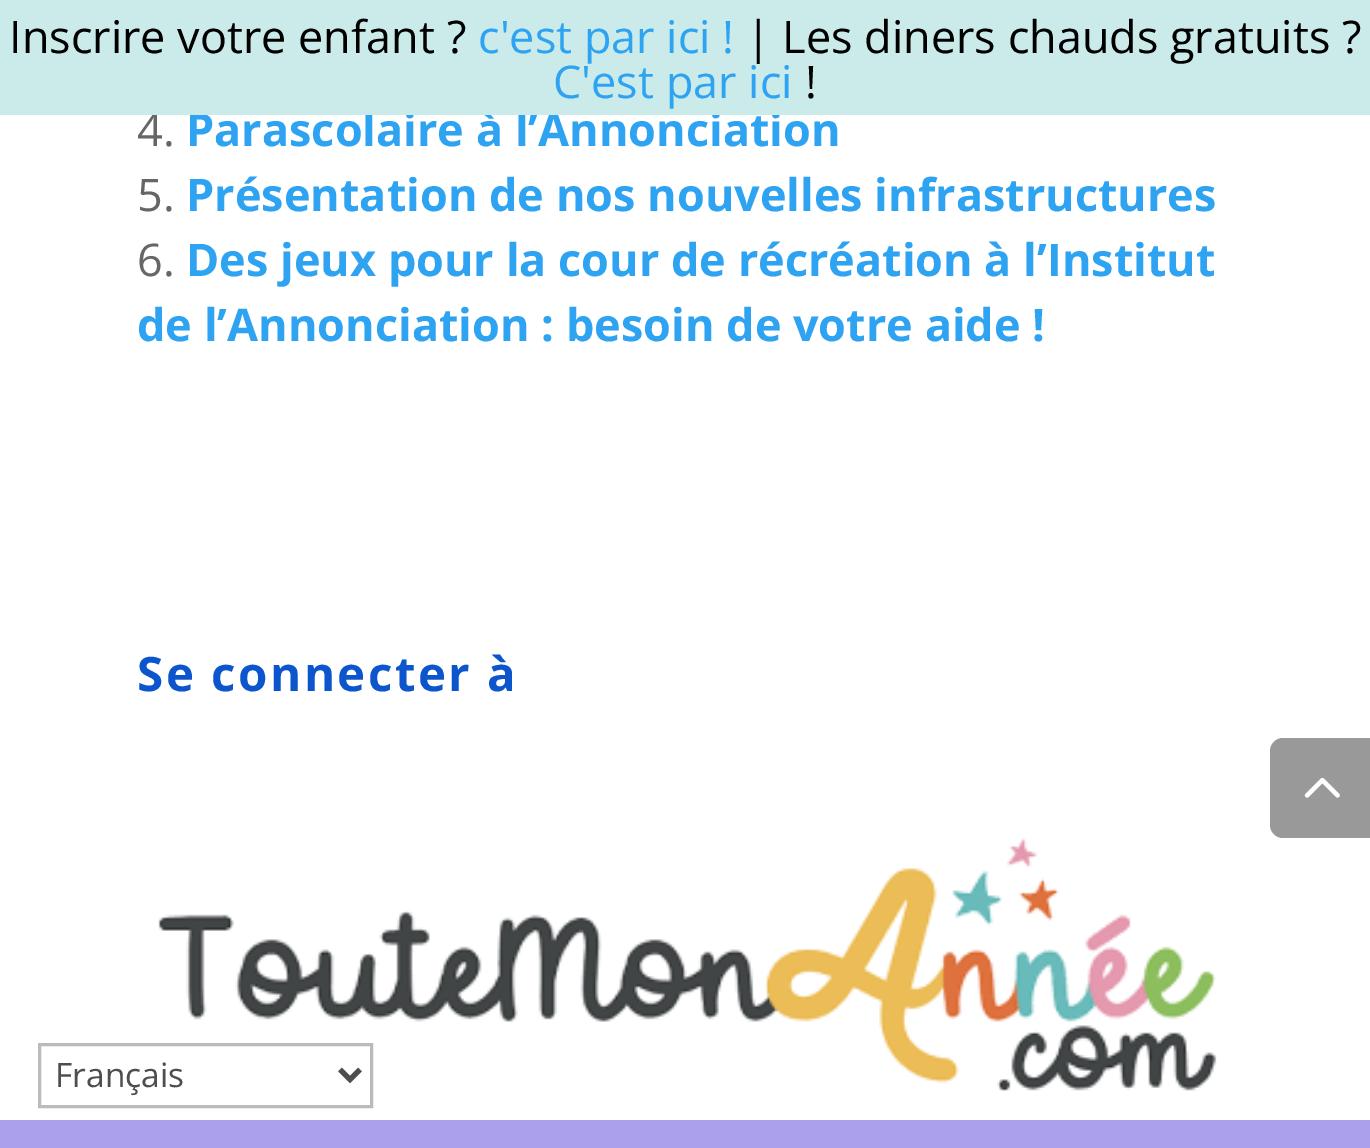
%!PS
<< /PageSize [1370 1148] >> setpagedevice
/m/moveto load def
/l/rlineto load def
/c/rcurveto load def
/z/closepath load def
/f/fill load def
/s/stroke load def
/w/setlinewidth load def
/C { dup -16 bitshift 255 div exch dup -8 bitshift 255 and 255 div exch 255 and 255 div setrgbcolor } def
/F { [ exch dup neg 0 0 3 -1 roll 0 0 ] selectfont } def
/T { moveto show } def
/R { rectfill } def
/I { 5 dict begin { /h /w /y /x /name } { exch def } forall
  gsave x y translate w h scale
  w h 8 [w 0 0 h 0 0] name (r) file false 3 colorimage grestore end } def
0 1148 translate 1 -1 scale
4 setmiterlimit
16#FFFFFF C
0 0 1370 1148 R
/OpenSans-Regular 45 F
16#666666 C
(4.) 137 146 T
/OpenSans-Bold 45 F
16#2EA3F2 C
(Parascolaire à l’Annonciation) 186 146 T
16#CAEBE9 C
0 0 1370 115 R
/OpenSans-Regular 45 F
16#000000 C
(Inscrire votre enfant ?) 9 53 T
16#2EA3F2 C
(c'est par ici !) 478 53 T
16#000000 C
(| Les diners chauds gratuits ?) 746 53 T
16#2EA3F2 C
(C'est par ici) 553 98 T
16#000000 C
(!) 805 98 T
16#666666 C
(5.) 137 211 T
/OpenSans-Bold 45 F
16#2EA3F2 C
(Présentation de nos nouvelles infrastructures) 186 211 T
/OpenSans-Regular 45 F
16#666666 C
(6.) 137 276 T
/OpenSans-Bold 45 F
16#2EA3F2 C
(Des jeux pour la cour de récréation à l’Institut) 186 276 T
(de l’Annonciation : besoin de votre aide !) 137 341 T
/OpenSans-Bold 47.5 F
16#0C55CC C
137 691 m 2.5 0 (Se connecter à) ashow
(1.rgb) 158 838 1059 254 I
16#999999 C
1283 738 m 87 0 l 0 100 l -87 0 l -7 0 -13 -6 -13 -13 c 0 -74 l 0 -7 6 -13 13 -13 c z f
(2.rgb) 1304 777 36 21 I
16#BBBBBB C
3 w
39.5 1044.5 332 62 rectstroke
16#4E4E4E C
5 w
340 1069.5 m 10 10 l 10 -10 l s
/OpenSans-Regular 33.5 F
(Français) 55 1087 T
16#AAA0EC C
0 1120 1370 28 R
showpage
